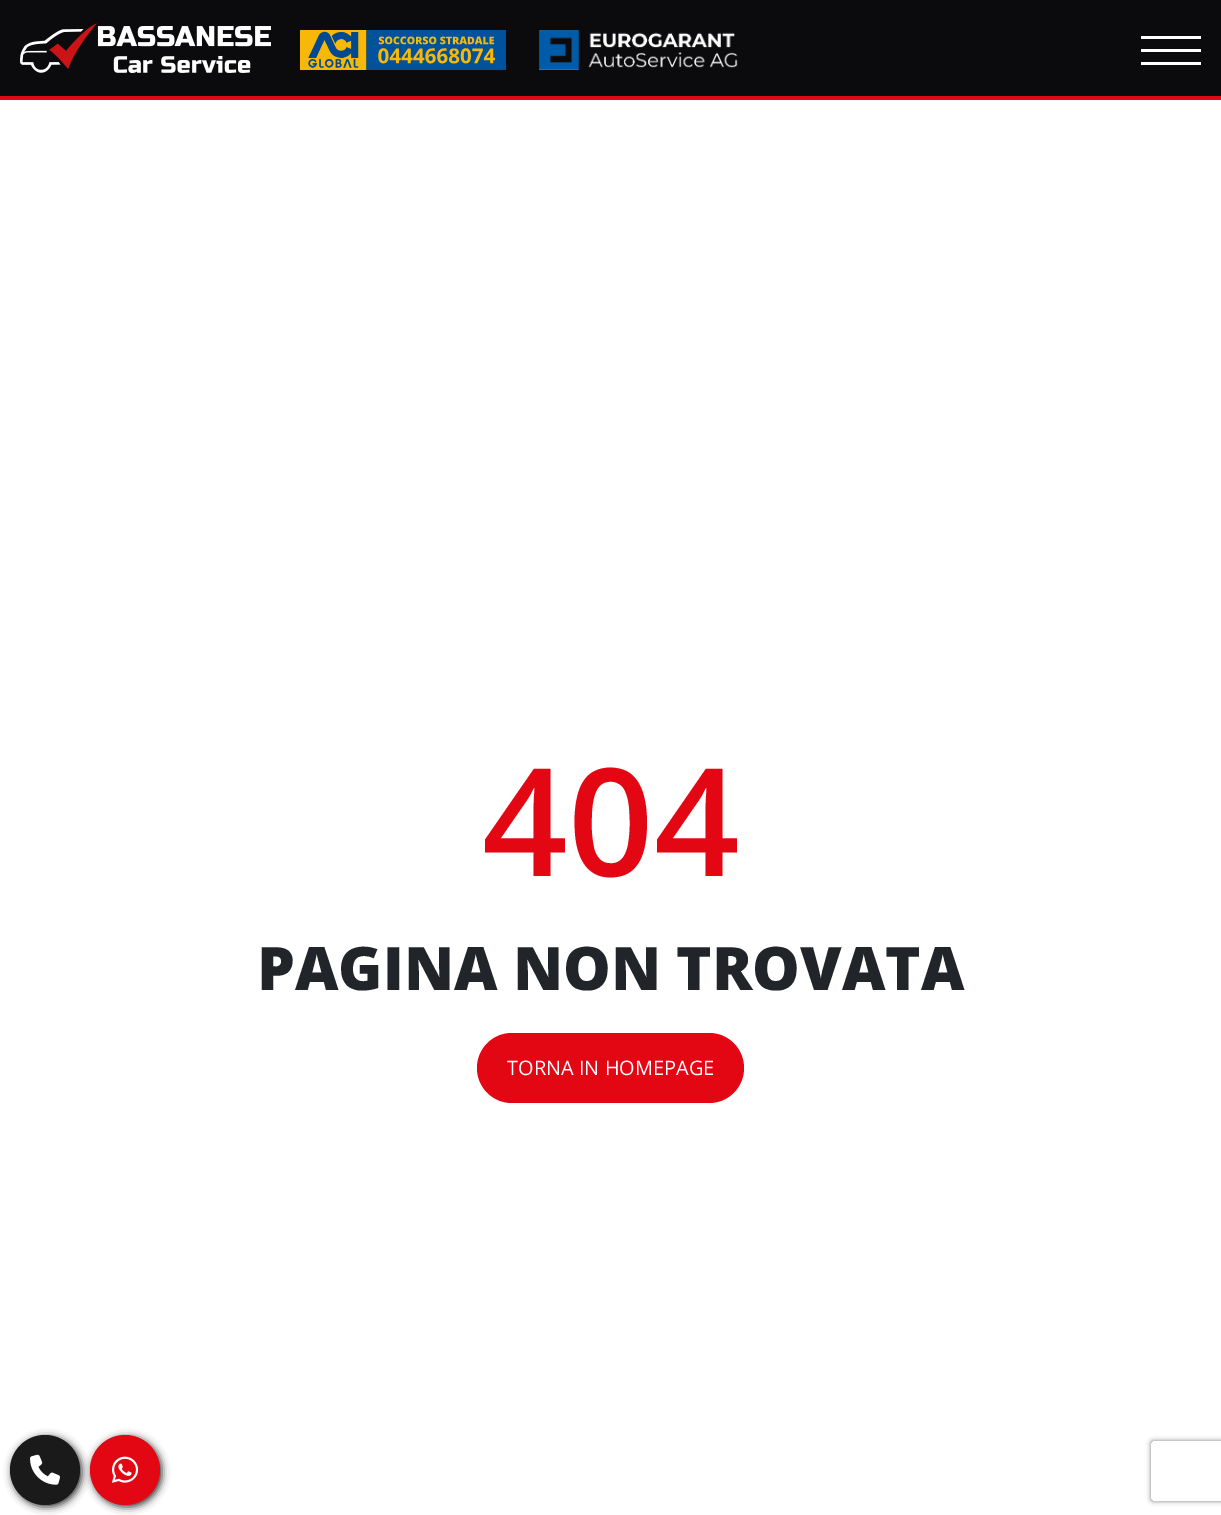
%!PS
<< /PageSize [1221 1515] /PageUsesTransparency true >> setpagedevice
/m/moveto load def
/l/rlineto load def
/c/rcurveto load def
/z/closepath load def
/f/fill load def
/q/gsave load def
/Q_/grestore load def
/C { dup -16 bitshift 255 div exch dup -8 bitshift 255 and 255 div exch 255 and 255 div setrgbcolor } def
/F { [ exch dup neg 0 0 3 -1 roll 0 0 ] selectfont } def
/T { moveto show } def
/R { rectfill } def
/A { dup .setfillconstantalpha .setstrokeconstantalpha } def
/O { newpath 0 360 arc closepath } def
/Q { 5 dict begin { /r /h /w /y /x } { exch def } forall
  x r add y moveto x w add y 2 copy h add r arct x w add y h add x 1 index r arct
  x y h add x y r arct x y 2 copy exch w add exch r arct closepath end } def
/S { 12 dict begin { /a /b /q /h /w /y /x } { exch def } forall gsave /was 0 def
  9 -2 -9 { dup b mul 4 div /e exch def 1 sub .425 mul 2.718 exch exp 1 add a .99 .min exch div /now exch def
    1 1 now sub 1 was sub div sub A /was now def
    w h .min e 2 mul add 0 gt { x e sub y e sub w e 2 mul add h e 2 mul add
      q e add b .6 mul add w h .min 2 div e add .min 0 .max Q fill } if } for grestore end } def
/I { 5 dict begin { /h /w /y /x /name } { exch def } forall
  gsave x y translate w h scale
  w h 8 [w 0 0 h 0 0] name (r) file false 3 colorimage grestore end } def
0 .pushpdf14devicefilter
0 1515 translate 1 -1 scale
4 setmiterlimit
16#FFFFFF C
0 0 1221 1515 R
16#0B0B0D C
0 0 1221 96 R
(1.rgb) 300 30 206 40 I
(2.rgb) 539 30 199 40 I
16#FFFFFF C
1141 36 60 3 R
1141 49 60 3 R
1141 62 60 3 R
16#E30613 C
0 96 1221 4 R
(3.rgb) 20 23 251 50 I
/OpenSans-SemiBold 150 F
(404) 482 876 T
/OpenSans-ExtraBold 60 F
16#212529 C
(PAGINA NON TROVATA) 257 990 T
16#E30613 C
477 1033 267 70 35 Q f
/OpenSans-Regular 20 F
16#FFFFFF C
(TORNA IN HOMEPAGE) 507 1075 T
16#323232 C
12 1437 70 70 35 4 1 S
16#1A1A1A C
45 1470 35 O f
(4.rgb) 30 1454 30 31 I
16#323232 C
92 1437 70 70 35 4 1 S
16#E30613 C
125 1470 35 O f
(5.rgb) 111 1456 28 27 I
q
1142 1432 m 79 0 l 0 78 l -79 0 l z 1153 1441 m 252 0 l 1 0 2 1 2 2 c 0 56 l 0 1 -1 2 -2 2 c -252 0 l -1 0 -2 -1 -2 -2 c 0 -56 l 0 -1 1 -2 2 -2 c z eoclip newpath
16#808080 C
1151 1441 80 60 2 2.5 1 S
Q_
.poppdf14devicefilter showpage
